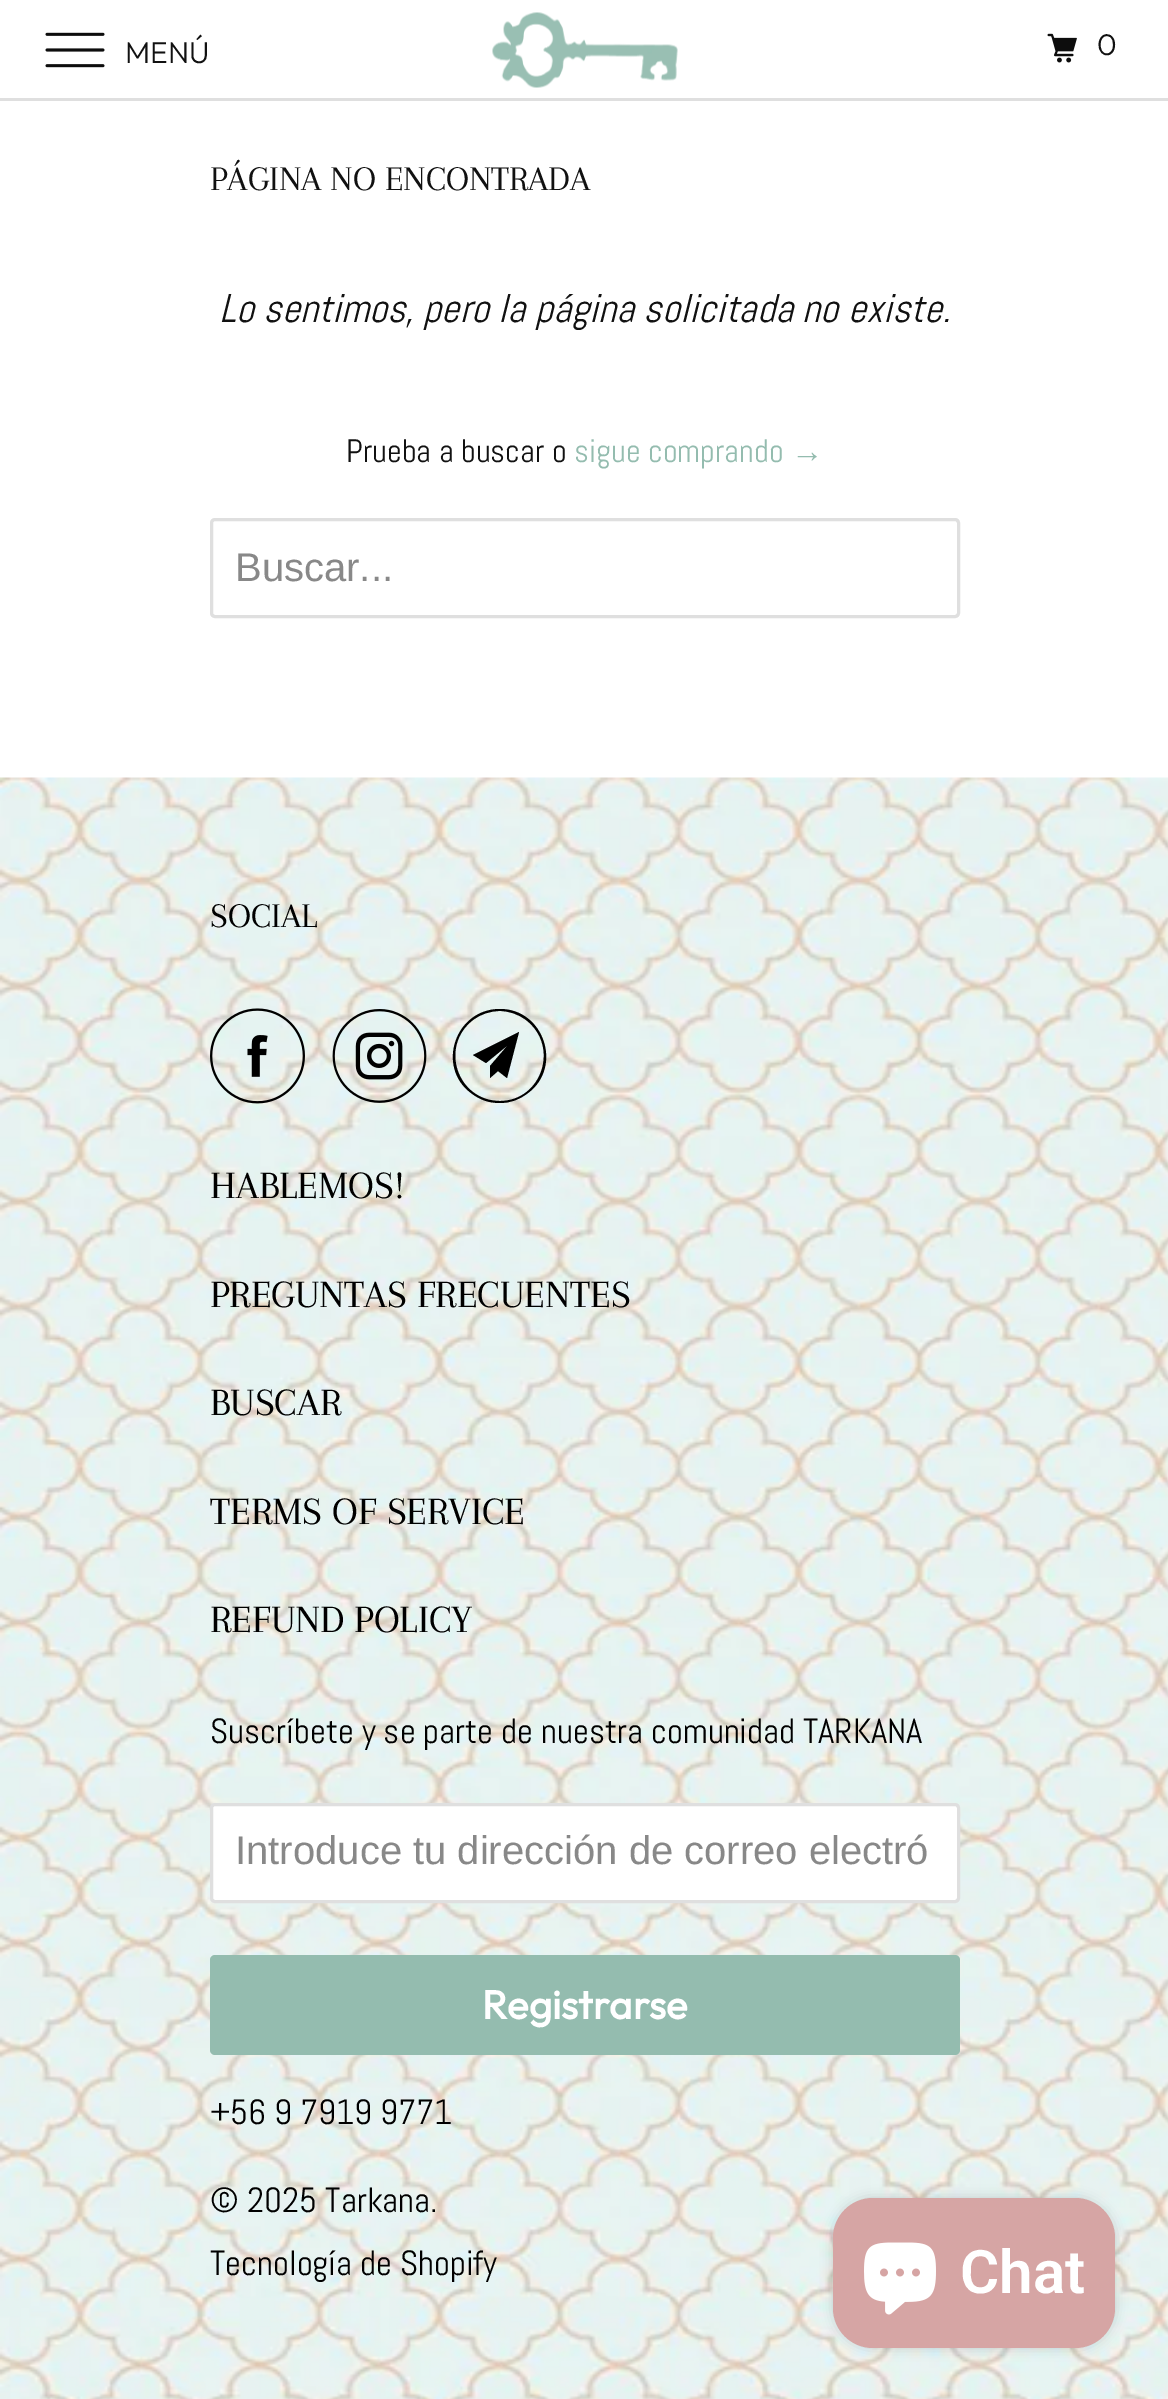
%!PS
<< /PageSize [1168 2399] /PageUsesTransparency true >> setpagedevice
/m/moveto load def
/l/rlineto load def
/c/rcurveto load def
/z/closepath load def
/f/fill load def
/s/stroke load def
/q/gsave load def
/Q_/grestore load def
/w/setlinewidth load def
/C { dup -16 bitshift 255 div exch dup -8 bitshift 255 and 255 div exch 255 and 255 div setrgbcolor } def
/F { [ exch dup neg 0 0 3 -1 roll 0 0 ] selectfont } def
/T { moveto show } def
/R { rectfill } def
/A { dup .setfillconstantalpha .setstrokeconstantalpha } def
/Q { 5 dict begin { /r /h /w /y /x } { exch def } forall
  x r add y moveto x w add y 2 copy h add r arct x w add y h add x 1 index r arct
  x y h add x y r arct x y 2 copy exch w add exch r arct closepath end } def
/S { 12 dict begin { /a /b /q /h /w /y /x } { exch def } forall gsave /was 0 def
  9 -2 -9 { dup b mul 4 div /e exch def 1 sub .425 mul 2.718 exch exp 1 add a .99 .min exch div /now exch def
    1 1 now sub 1 was sub div sub A /was now def
    w h .min e 2 mul add 0 gt { x e sub y e sub w e 2 mul add h e 2 mul add
      q e add b .6 mul add w h .min 2 div e add .min 0 .max Q fill } if } for grestore end } def
/I { 5 dict begin { /h /w /y /x /name } { exch def } forall
  gsave x y translate w h scale
  w h 8 [w 0 0 h 0 0] name (r) file false 3 colorimage grestore end } def
0 .pushpdf14devicefilter
0 2399 translate 1 -1 scale
4 setmiterlimit
16#FFFFFF C
0 0 1168 2399 R
16#DFDFDF C
0 98 1168 3 R
(1.rgb) 45 32 60 36 I
/Outfit-Light 30 F
16#111111 C
(MENÚ) 125 63 T
(2.rgb) 492 12 186 76 I
(3.rgb) 1047 33 30 30 I
(0) 1097 55 T
/Arapey-Regular 35.75 F
(PÁGINA NO ENCONTRADA) 210 190 T
/Abel-Italic 40 F
(Lo sentimos, pero la página solicitada no existe.) 219 322 T
/Abel-Regular 32.5 F
(Prueba a buscar o) 346 462 T
16#94BCAF C
(sigue comprando) 574 462 T
/LiberationSans-Regular 32.5 F
(→) 791 462 T
16#DFDFDF C
3 w
211.5 519.5 747 97 3.5 Q s
/LiberationSans-Regular 40 F
16#888888 C
(Buscar...) 235 581 T
(4.rgb) 0 777 1168 1622 I
/Arapey-Regular 35.75 F
16#000000 C
(SOCIAL) 210 927 T
(5.rgb) 210 1008 95 96 I
(6.rgb) 332 1009 95 94 I
507 1078 m -9 -7 l -8 7 l 0 -12 l 18 -21 l -22 18 l -13 -8 l 46 -23 l z 500 1011 m -10 0 -19 3 -27 9 c -34 26 -16 81 27 81 c 42 0 60 -55 26 -81 c -8 -6 -17 -9 -26 -9 c z 500 1103 m -11 0 -20 -3 -29 -10 c -35 -26 -16 -84 29 -84 c 44 0 63 58 28 84 c -9 7 -18 10 -28 10 c z f
/Arapey-Regular 40 F
(HABLEMOS!) 210 1198 T
(PREGUNTAS FRECUENTES) 210 1307 T
(BUSCAR) 210 1415 T
(TERMS OF SERVICE) 210 1524 T
(REFUND POLICY) 210 1632 T
/Abel-Regular 35 F
(Suscríbete y se parte de nuestra comunidad TARKANA) 210 1743 T
16#FFFFFF C
211.5 1804.5 747 97 3.5 Q q f Q_
16#DFDFDF C
s
/LiberationSans-Regular 40 F
16#888888 C
(Introduce tu dirección de correo electró) 235 1864 T
16#94BCAF C
210 1955 750 100 5 Q f
/Outfit-Bold 40 F
16#FFFFFF C
(Registrarse) 482 2019 T
/Abel-Regular 35 F
16#000000 C
(+56 9 7919 9771) 210 2124 T
(© 2025 Tarkana.) 210 2212 T
(Tecnología de Shopify) 210 2275 T
833 2198 282 150 40 6 .15 S
16#D6A5A4 C
833 2198 282 150 40 Q f
(7.rgb) 864 2242 72 73 I
/Roboto-SemiBold 60 F
16#FFFFFF C
(Chat) 960 2293 T
.poppdf14devicefilter showpage
